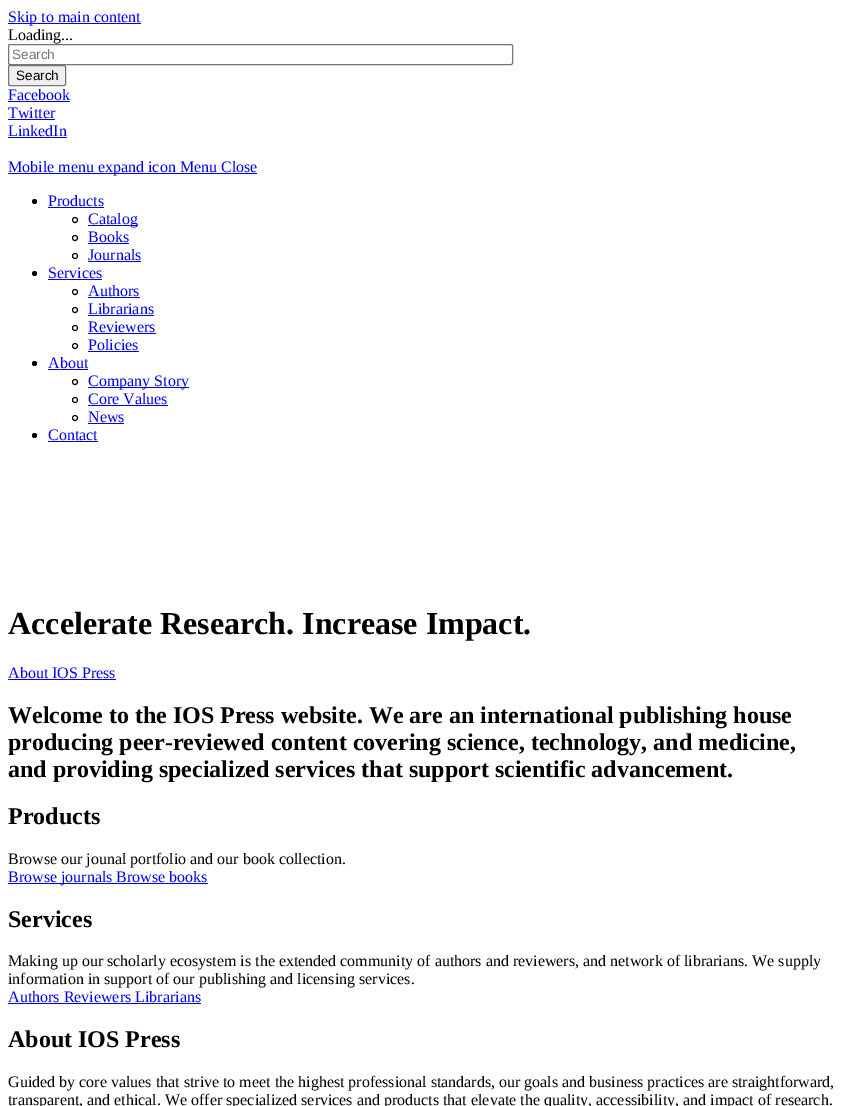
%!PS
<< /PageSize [848 1106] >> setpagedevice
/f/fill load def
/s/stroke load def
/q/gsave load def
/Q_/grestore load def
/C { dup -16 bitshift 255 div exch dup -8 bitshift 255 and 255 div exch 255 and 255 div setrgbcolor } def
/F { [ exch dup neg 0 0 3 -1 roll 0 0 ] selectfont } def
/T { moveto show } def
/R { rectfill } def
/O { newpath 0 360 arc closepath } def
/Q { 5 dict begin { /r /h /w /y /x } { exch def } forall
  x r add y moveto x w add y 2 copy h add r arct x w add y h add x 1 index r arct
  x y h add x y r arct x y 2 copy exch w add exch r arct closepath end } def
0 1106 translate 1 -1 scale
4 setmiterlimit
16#FFFFFF C
0 0 848 1106 R
16#0000EE C
8 23 133 1 R
/LiberationSerif-Regular 16 F
(Skip to main content) 8 22 T
16#000000 C
(Loading...) 8 40 T
16#767676 C
8.5 44.5 504 20 1.5 Q s
/LiberationSans-Regular 13.5 F
16#757575 C
(Search) 12 59 T
16#EFEFEF C
8.5 65.5 57 20 1.5 Q q f Q_
16#767676 C
s
16#000000 C
(Search) 16 80 T
/LiberationSerif-Regular 16 F
16#0000EE C
(Facebook) 8 100 T
8 101 62 1 R
(Twitter) 8 118 T
8 119 47 1 R
(LinkedIn) 8 136 T
8 137 59 1 R
8 173 249 1 R
(Mobile menu expand icon Menu Close) 8 172 T
16#000000 C
34.5 201.5 2.5 O f
16#0000EE C
(Products) 48 206 T
48 207 56 1 R
16#000000 C
75 220 2.5 O s
16#0000EE C
88 225 50 1 R
(Catalog) 88 224 T
16#000000 C
75 238 2.5 O s
16#0000EE C
(Books) 88 242 T
88 243 41 1 R
16#000000 C
75 256 2.5 O s
16#0000EE C
(Journals) 88 260 T
88 261 53 1 R
16#000000 C
34.5 273.5 2.5 O f
16#0000EE C
(Services) 48 278 T
48 279 54 1 R
16#000000 C
75 292 2.5 O s
16#0000EE C
(Authors) 88 296 T
88 297 52 1 R
16#000000 C
75 310 2.5 O s
16#0000EE C
(Librarians) 88 314 T
88 315 66 1 R
16#000000 C
75 328 2.5 O s
16#0000EE C
(Reviewers) 88 332 T
88 333 68 1 R
16#000000 C
75 346 2.5 O s
16#0000EE C
(Policies) 88 350 T
88 351 51 1 R
16#000000 C
34.5 363.5 2.5 O f
16#0000EE C
(About) 48 368 T
48 369 40 1 R
16#000000 C
75 382 2.5 O s
16#0000EE C
88 387 101 1 R
(Company Story) 88 386 T
16#000000 C
75 400 2.5 O s
16#0000EE C
(Core Values) 88 404 T
88 405 80 1 R
16#000000 C
75 418 2.5 O s
16#0000EE C
(News) 88 422 T
88 423 36 1 R
16#000000 C
34.5 435.5 2.5 O f
16#0000EE C
(Contact) 48 440 T
48 441 50 1 R
/LiberationSerif-Bold 32 F
16#000000 C
(Accelerate Research. Increase Impact.) 8 634 T
/LiberationSerif-Regular 16 F
16#0000EE C
(About IOS Press) 8 678 T
8 679 108 1 R
/LiberationSerif-Bold 24 F
16#000000 C
(Welcome to the IOS Press website. We are an international publishing house) 8 723 T
(producing peer-reviewed content covering science, technology, and medicine,) 8 750 T
(and providing specialized services that support scientific advancement.) 8 777 T
(Products) 8 824 T
/LiberationSerif-Regular 16 F
(Browse our jounal portfolio and our book collection.) 8 864 T
16#0000EE C
8 883 200 1 R
(Browse journals Browse books) 8 882 T
/LiberationSerif-Bold 24 F
16#000000 C
(Services) 8 927 T
/LiberationSerif-Regular 16 F
(Making up our scholarly ecosystem is the extended community of authors and reviewers, and network of librarians. We supply) 8 966 T
(information in support of our publishing and licensing services.) 8 984 T
16#0000EE C
(Authors Reviewers Librarians) 8 1002 T
8 1003 193 1 R
/LiberationSerif-Bold 24 F
16#000000 C
(About IOS Press) 8 1047 T
/LiberationSerif-Regular 16 F
(Guided by core values that strive to meet the highest professional standards, our goals and business practices are straightforward,) 8 1087 T
(transparent, and ethical. We offer specialized services and products that elevate the quality, accessibility, and impact of research.) 8 1105 T
showpage
